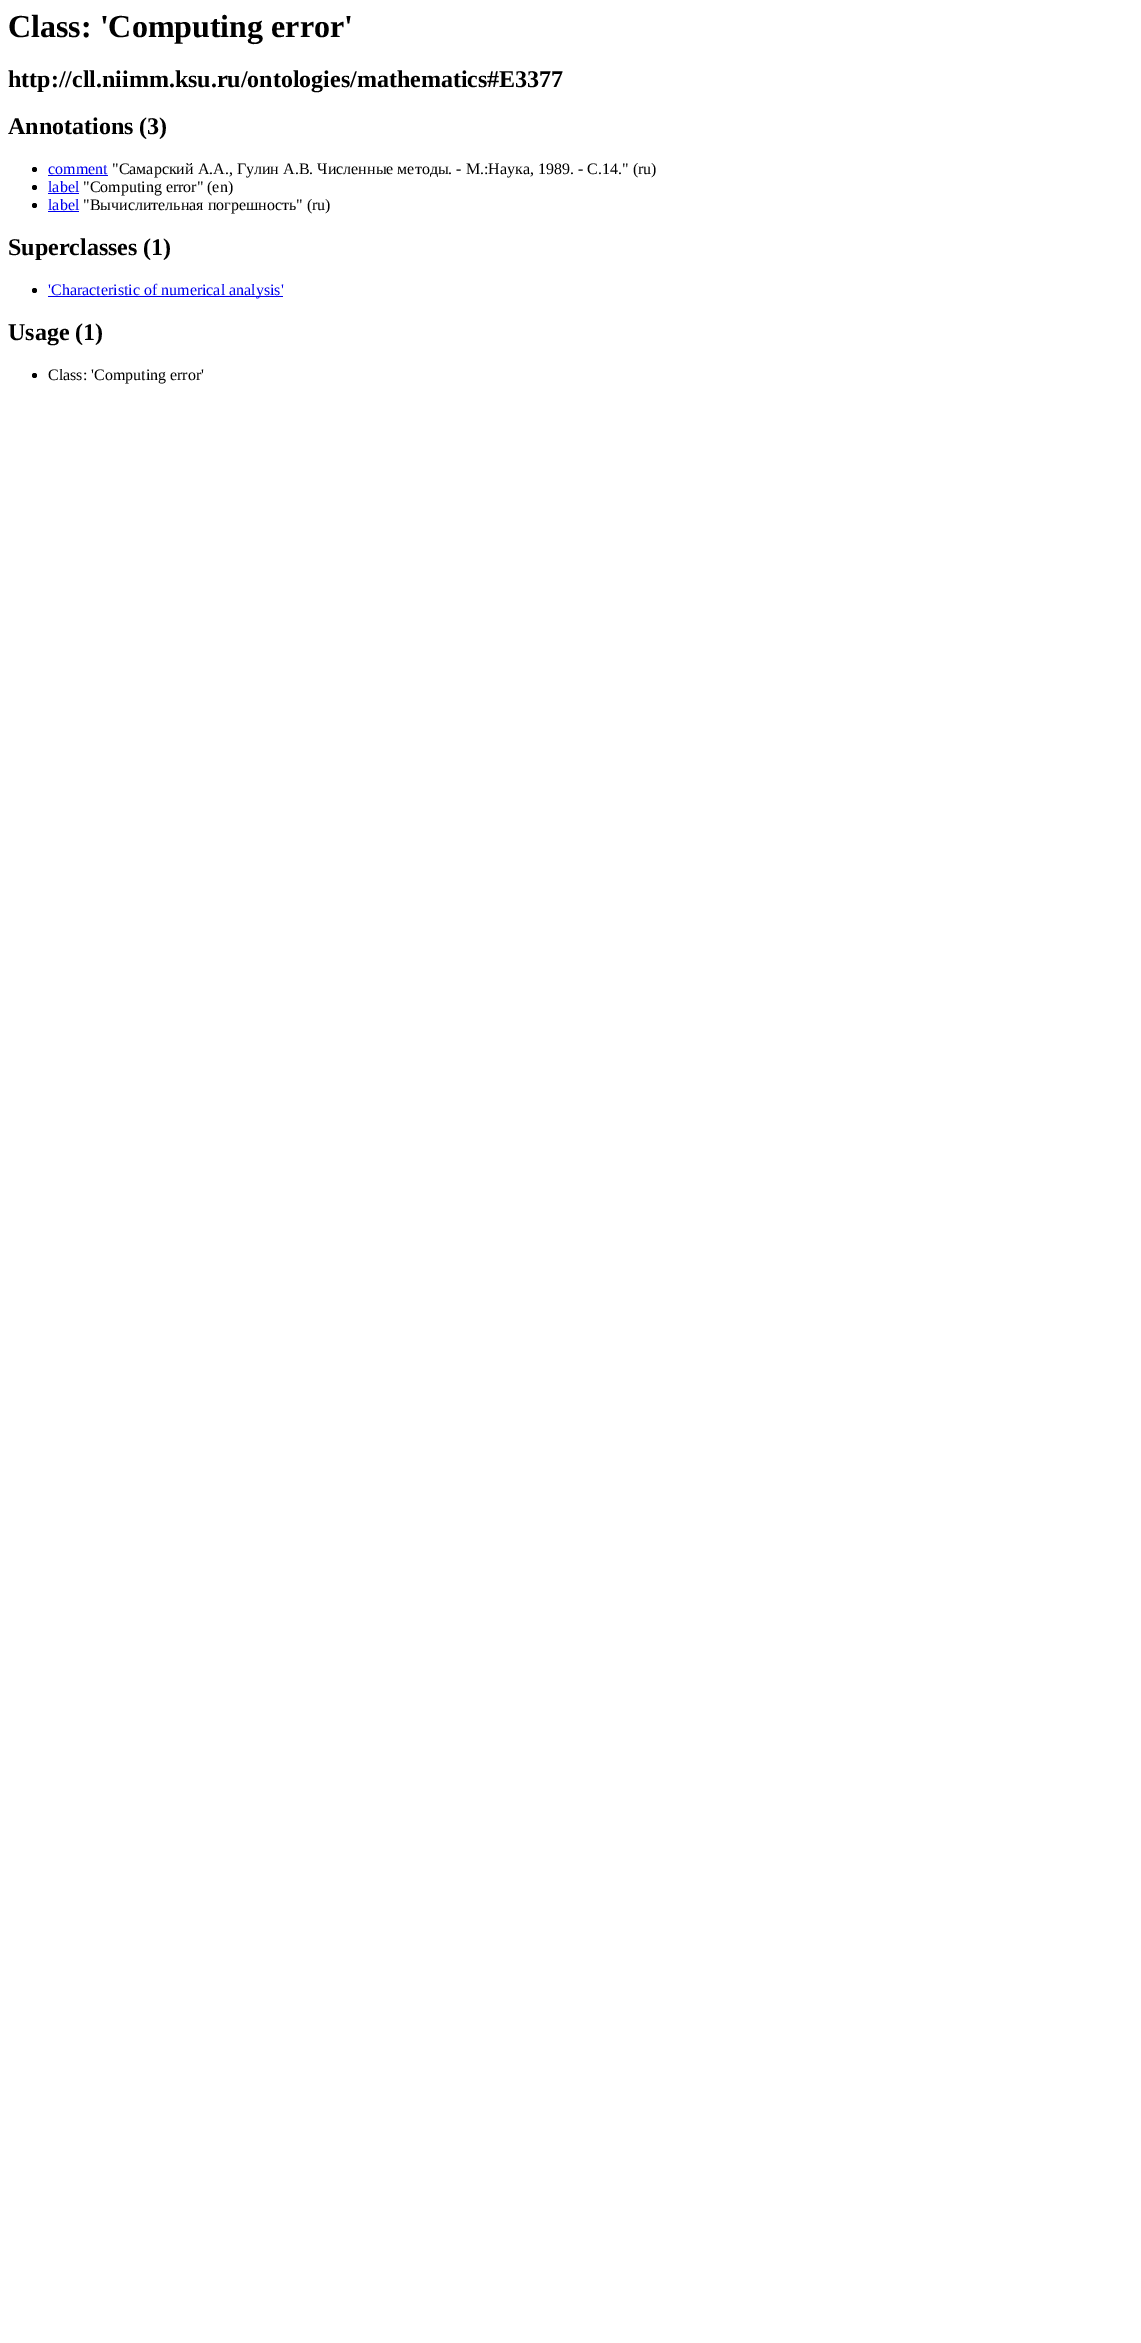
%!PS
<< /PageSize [1141 2343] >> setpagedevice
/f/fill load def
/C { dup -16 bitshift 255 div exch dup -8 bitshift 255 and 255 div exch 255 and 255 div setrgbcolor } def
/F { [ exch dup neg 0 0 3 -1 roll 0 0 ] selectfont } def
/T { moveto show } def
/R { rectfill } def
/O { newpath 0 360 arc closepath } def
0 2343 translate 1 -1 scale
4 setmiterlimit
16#FFFFFF C
0 0 1141 2343 R
/LiberationSerif-Bold 32 F
16#000000 C
(Class: 'Computing error') 8 37 T
/LiberationSerif-Bold 24 F
(http://cll.niimm.ksu.ru/ontologies/mathematics#E3377) 8 87 T
(Annotations \(3\)) 8 134 T
34.5 169.5 2.5 O f
/LiberationSerif-Regular 16 F
16#0000EE C
(comment) 48 174 T
48 175 60 1 R
16#000000 C
("Самарский А.А., Гулин А.В. Численные методы. - М.:Наука, 1989. - С.14." \(ru\)) 112 174 T
34.5 187.5 2.5 O f
16#0000EE C
(label) 48 192 T
48 193 31 1 R
16#000000 C
("Computing error" \(en\)) 83 192 T
34.5 205.5 2.5 O f
16#0000EE C
(label) 48 210 T
48 211 31 1 R
16#000000 C
("Вычислительная погрешность" \(ru\)) 83 210 T
/LiberationSerif-Bold 24 F
(Superclasses \(1\)) 8 255 T
34.5 290.5 2.5 O f
16#0000EE C
48 296 235 1 R
/LiberationSerif-Regular 16 F
('Characteristic of numerical analysis') 48 295 T
/LiberationSerif-Bold 24 F
16#000000 C
(Usage \(1\)) 8 340 T
34.5 375.5 2.5 O f
/LiberationSerif-Regular 16 F
(Class: 'Computing error') 48 380 T
showpage
